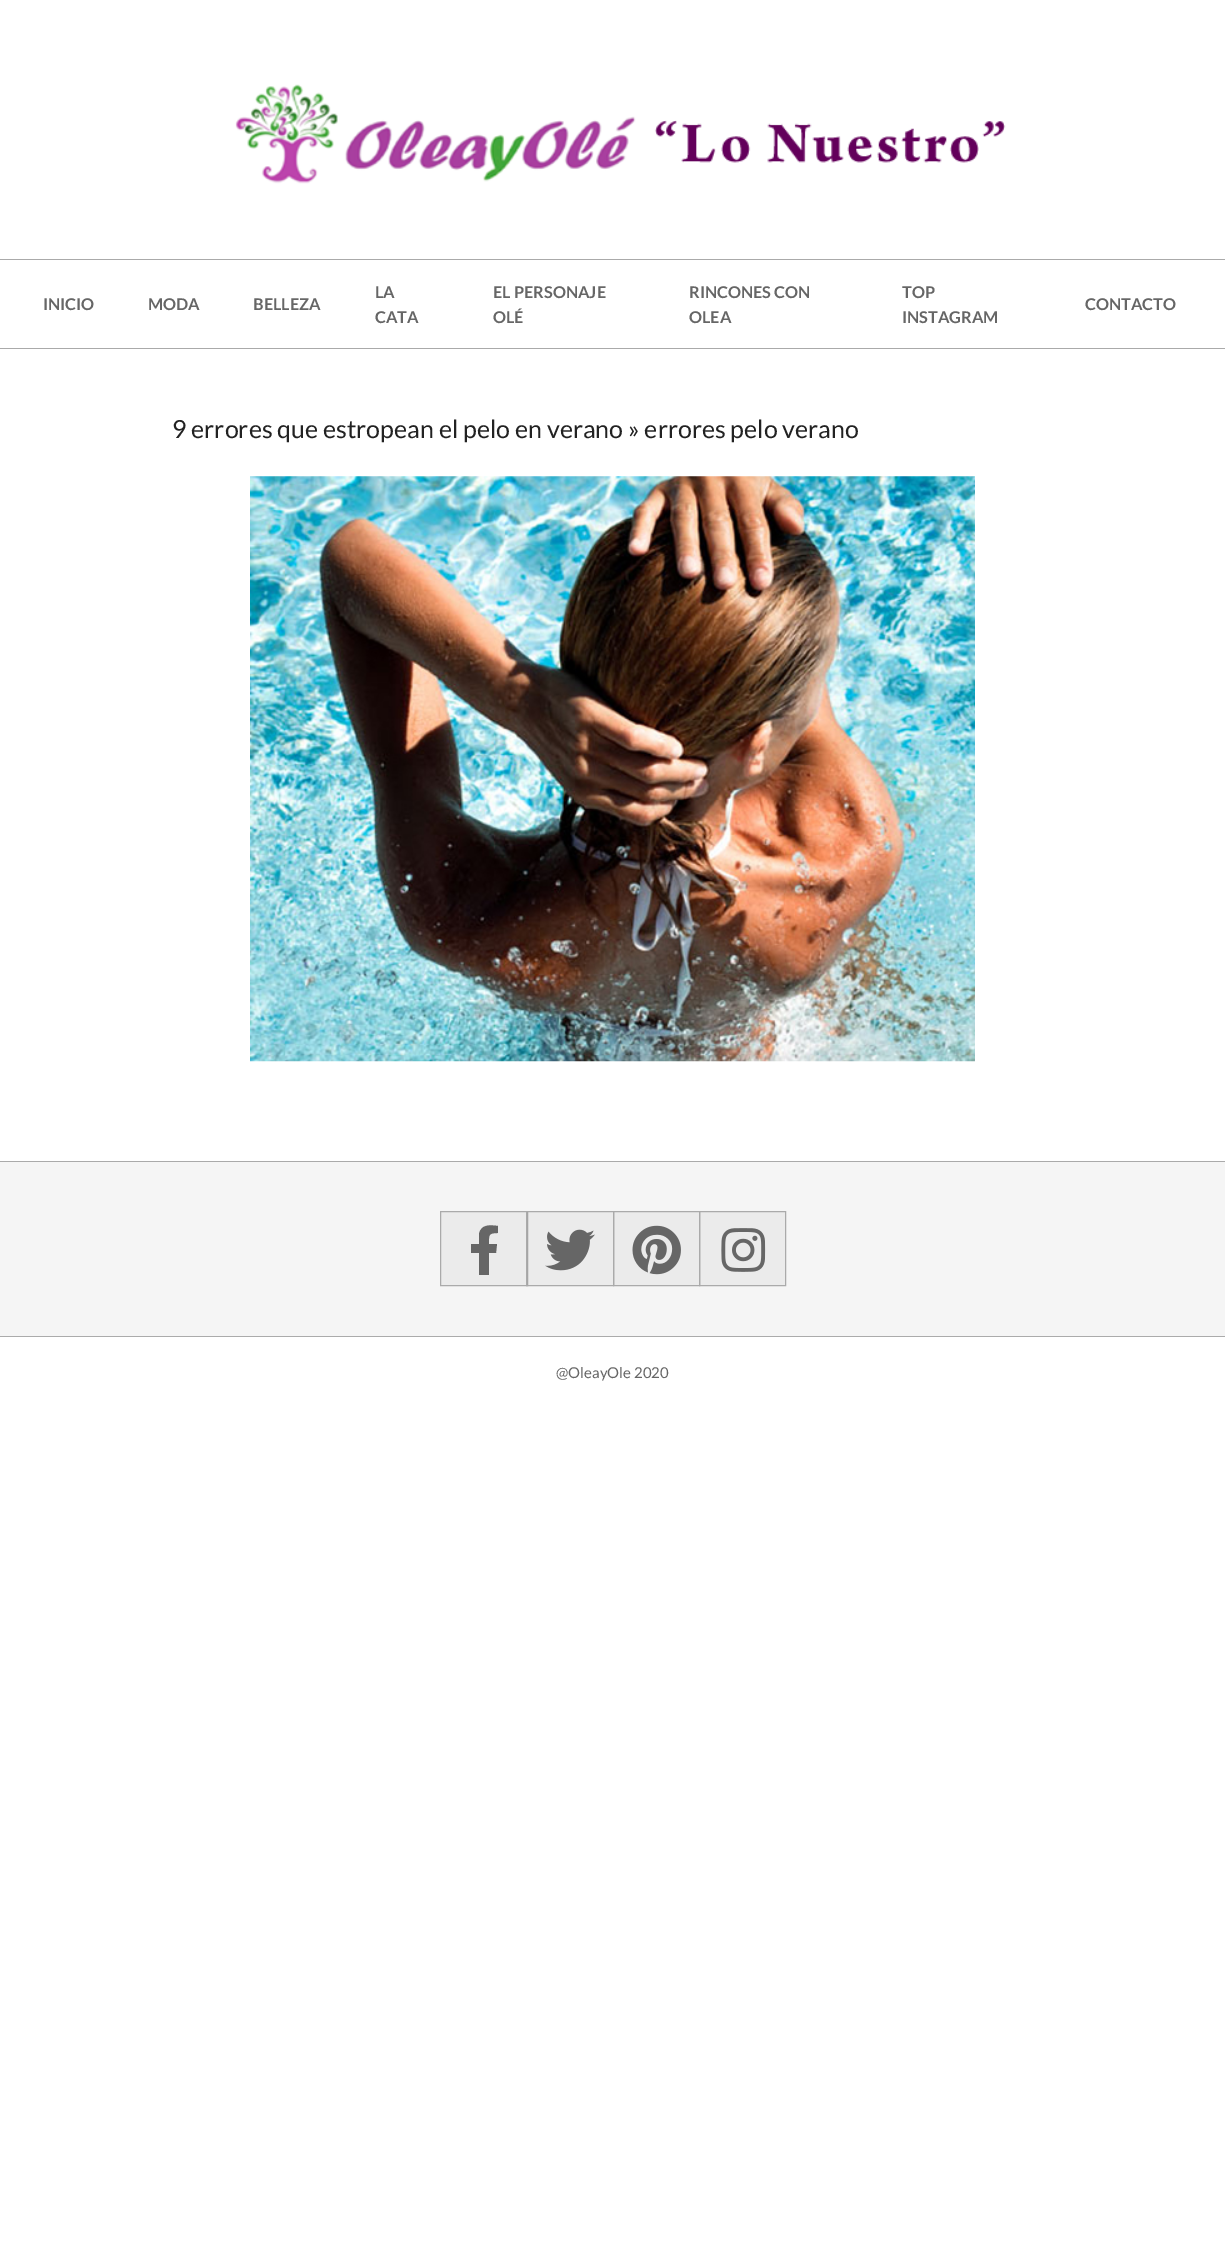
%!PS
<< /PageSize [1225 2256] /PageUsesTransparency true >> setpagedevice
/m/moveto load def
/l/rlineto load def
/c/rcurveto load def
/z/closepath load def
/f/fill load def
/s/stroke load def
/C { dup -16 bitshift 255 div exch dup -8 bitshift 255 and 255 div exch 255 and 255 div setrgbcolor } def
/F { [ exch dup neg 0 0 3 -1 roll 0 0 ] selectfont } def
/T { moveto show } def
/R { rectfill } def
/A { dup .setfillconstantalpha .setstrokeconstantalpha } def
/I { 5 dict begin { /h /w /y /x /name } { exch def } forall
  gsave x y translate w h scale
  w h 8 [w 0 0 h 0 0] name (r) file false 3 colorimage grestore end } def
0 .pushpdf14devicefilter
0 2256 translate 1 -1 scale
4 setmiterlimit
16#FFFFFF C
0 0 1225 2256 R
16#AAAAAA C
0 259 1225 1 R
(1.rgb) 235 84 771 100 I
0 348 1225 1 R
/Lato-Bold 16.25 F
16#666666 C
(INICIO) 43 310 T
(MODA) 148 310 T
(BELLEZA) 253 310 T
(LA) 375 298 T
(CATA) 375 323 T
(EL PERSONAJE) 493 298 T
(OLÉ) 493 323 T
(RINCONES CON) 689 298 T
(OLEA) 689 323 T
(TOP) 902 298 T
(INSTAGRAM) 902 323 T
(CONTACTO) 1085 310 T
/Lato-Regular 25 F
16#222222 C
(9 errores que estropean el pelo en verano » errores pelo verano) 172 438 T
(2.rgb) 250 476 725 586 I
16#F5F5F5 C
0 1162 1225 174 R
16#AAAAAA C
0 1161 1225 1 R
16#EBEBEB C
441 1212 85 73 R
16#AAAAAA C
440.5 1211.5 87 74 rectstroke
16#666666 C
496 1253 m -7 0 l 0 22 l -10 0 l 0 -22 l -8 0 l 0 -9 l 8 0 l 0 -10 l 2 -10 11 -9 19 -8 c 0 7 l -10 0 -9 2 -9 11 c 8 0 l z f
0.04 A
16#000000 C
526.5 1211.5 m 87 0 l 0 74 l -87 0 l z f
1 A
16#AAAAAA C
526.5 1211.5 m 87 0 l 0 74 l -87 0 l z s
(3.rgb) 545 1229 50 42 I
0.04 A
16#000000 C
613.5 1211.5 m 86 0 l 0 74 l -86 0 l z f
1 A
16#AAAAAA C
613.5 1211.5 m 86 0 l 0 74 l -86 0 l z s
(4.rgb) 632 1225 49 50 I
0.04 A
16#000000 C
699.5 1211.5 m 86 0 l 0 74 l -86 0 l z f
1 A
16#AAAAAA C
699.5 1211.5 m 86 0 l 0 74 l -86 0 l z s
(5.rgb) 721 1228 45 44 I
16#ABABAB C
0 1336 1225 1 R
/Lato-Regular 15 F
16#666666 C
(@OleayOle 2020) 556 1378 T
.poppdf14devicefilter showpage
